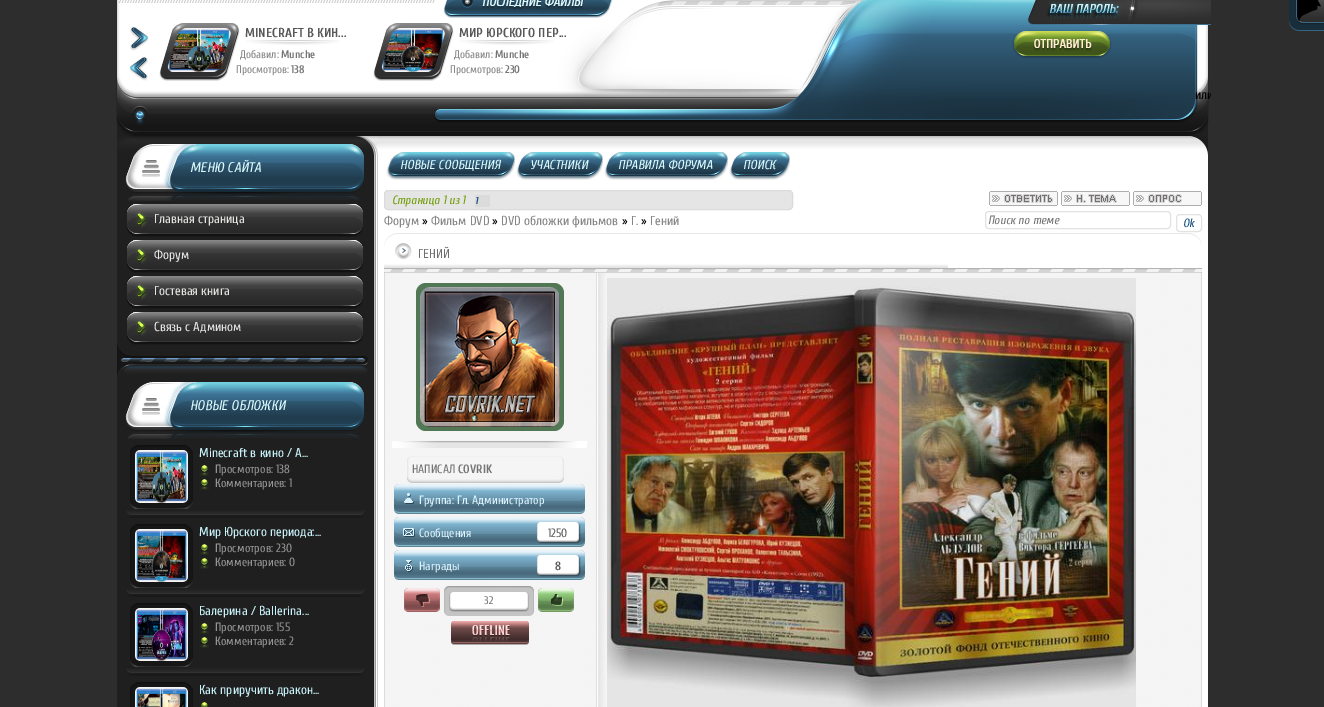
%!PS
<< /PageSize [1324 707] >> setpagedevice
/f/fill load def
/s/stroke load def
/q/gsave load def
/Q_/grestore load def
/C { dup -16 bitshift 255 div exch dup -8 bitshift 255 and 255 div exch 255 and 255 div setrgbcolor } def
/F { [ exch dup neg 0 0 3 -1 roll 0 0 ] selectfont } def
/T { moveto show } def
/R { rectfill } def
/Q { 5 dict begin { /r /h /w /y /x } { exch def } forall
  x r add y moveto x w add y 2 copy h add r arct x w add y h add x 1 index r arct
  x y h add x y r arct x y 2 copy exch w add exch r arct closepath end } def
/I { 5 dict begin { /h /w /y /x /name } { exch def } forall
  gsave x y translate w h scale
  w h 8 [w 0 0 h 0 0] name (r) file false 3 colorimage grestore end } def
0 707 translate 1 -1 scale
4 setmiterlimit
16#2D2D2D C
0 0 1324 707 R
(1.rgb) 116 0 1093 135 I
(2.rgb) 119 0 494 18 I
(3.rgb) 130 27 19 24 I
(4.rgb) 129 57 19 24 I
(5.rgb) 159 23 81 58 I
(6.rgb) 167 28 64 44 I
(7.rgb) 167 28 64 44 I
(8.rgb) 246 40 94 5 I
/Cuprum-Bold 13 F
16#585858 C
(MINECRAFT В КИН...) 245 37 T
/Cuprum-Regular 11 F
16#878686 C
(Добавил:) 240 58 T
/Cuprum-Bold 11 F
16#757575 C
(Munche) 281 58 T
/Cuprum-Regular 11 F
16#878686 C
(Просмотров:) 236 73 T
/Cuprum-Bold 11 F
16#757575 C
(138) 291 73 T
(5.rgb) 373 23 81 58 I
(9.rgb) 381 28 64 44 I
(10.rgb) 381 28 64 44 I
(11.rgb) 460 40 94 5 I
/Cuprum-Bold 13 F
16#585858 C
(МИР ЮРСКОГО ПЕР...) 459 37 T
/Cuprum-Regular 11 F
16#878686 C
(Добавил:) 454 58 T
/Cuprum-Bold 11 F
16#757575 C
(Munche) 495 58 T
/Cuprum-Regular 11 F
16#878686 C
(Просмотров:) 450 73 T
/Cuprum-Bold 11 F
16#757575 C
(230) 505 73 T
(12.rgb) 1027 0 184 25 I
(13.rgb) 1289 0 35 31 I
(14.rgb) 1297 0 27 22 I
(15.rgb) 1012 30 100 29 I
q
114 0 1097 135 rectclip
/Cuprum-Regular 13 F
16#000000 C
(или) 1195 99 T
Q_
(16.rgb) 117 135 1091 572 I
(17.rgb) 125 144 239 57 I
/Cuprum-Italic 14 F
16#DBFAFF C
(МЕНЮ САЙТА) 190 172 T
(18.rgb) 127 204 236 33 I
/Cuprum-Regular 13 F
16#E4E4E3 C
(Главная страница) 154 223 T
(18.rgb) 127 240 236 33 I
(Форум) 154 259 T
(18.rgb) 127 276 236 33 I
(Гостевая книга) 154 295 T
(19.rgb) 117 344 251 31 I
(18.rgb) 127 312 236 33 I
(Связь с Админом) 154 331 T
(20.rgb) 125 382 239 57 I
/Cuprum-Italic 14 F
16#DBFAFF C
(НОВЫЕ ОБЛОЖКИ) 190 410 T
(21.rgb) 126 510 239 8 I
(22.rgb) 130 445 63 64 I
(23.rgb) 135 450 53 53 I
/Cuprum-Regular 13 F
16#C8F3FA C
(Minecraft в кино / A...) 199 457 T
(24.rgb) 200 465 9 11 I
/Cuprum-Regular 12 F
16#959595 C
(Просмотров: 138) 215 473 T
(24.rgb) 200 479 9 11 I
(Комментариев: 1) 215 487 T
(21.rgb) 126 589 239 8 I
(22.rgb) 130 524 63 64 I
(25.rgb) 135 529 53 53 I
/Cuprum-Regular 13 F
16#C8F3FA C
(Мир Юрского периода:...) 199 536 T
(24.rgb) 200 544 9 11 I
/Cuprum-Regular 12 F
16#959595 C
(Просмотров: 230) 215 552 T
(24.rgb) 200 558 9 11 I
(Комментариев: 0) 215 566 T
(21.rgb) 126 668 239 8 I
(22.rgb) 130 603 63 64 I
(26.rgb) 135 608 53 53 I
/Cuprum-Regular 13 F
16#C8F3FA C
(Балерина / Ballerina...) 199 615 T
(24.rgb) 200 623 9 11 I
/Cuprum-Regular 12 F
16#959595 C
(Просмотров: 155) 215 631 T
(24.rgb) 200 637 9 11 I
(Комментариев: 2) 215 645 T
(27.rgb) 130 682 63 25 I
(28.rgb) 135 687 53 20 I
/Cuprum-Regular 13 F
16#C8F3FA C
(Как приручить дракон...) 199 694 T
(29.rgb) 201 702 7 5 I
16#FFFFFF C
948 156 260 2 R
(30.rgb) 378 136 830 20 I
(31.rgb) 386 152 129 28 I
/Cuprum-Italic 13 F
16#DBFAFF C
(НОВЫЕ СООБЩЕНИЯ) 400 169 T
(32.rgb) 516 152 87 28 I
(УЧАСТНИКИ) 530 169 T
(33.rgb) 604 152 124 28 I
(ПРАВИЛА ФОРУМА) 618 169 T
(34.rgb) 729 152 61 28 I
(ПОИСК) 743 169 T
16#E5E5E5 C
384.5 190.5 408 19 3.5 Q q f Q_
16#DBDBDB C
s
/Cuprum-Italic 12 F
16#709D07 C
(Страница 1 из 1) 392 204 T
16#DBDBDB C
475 195 15 12 R
/Cuprum-BoldItalic 10 F
16#114E7F C
(1) 475 204 T
(35.rgb) 989 191 69 15 I
(36.rgb) 1061 191 69 15 I
(37.rgb) 1133 191 69 15 I
/Cuprum-Regular 13 F
16#878686 C
(Форум) 384 225 T
16#000000 C
(») 422 225 T
16#878686 C
(Фильм DVD) 431 225 T
16#000000 C
(») 492 225 T
16#878686 C
(DVD обложки фильмов) 501 225 T
16#000000 C
(») 622 225 T
16#878686 C
(Г.) 631 225 T
16#000000 C
(») 641 225 T
16#878686 C
(Гений) 650 225 T
16#E2E2E2 C
985.5 211.5 185 17 3.5 Q s
/Cuprum-Italic 12 F
16#757575 C
(Поиск по теме) 988 224 T
16#E2E2E2 C
1176.5 214.5 25 17 3.5 Q s
16#114E7F C
(Ok) 1183 227 T
(38.rgb) 384 233 818 40 I
/Cuprum-Regular 13 F
16#6F6F6F C
(ГЕНИЙ) 418 258 T
(39.rgb) 385 273 816 434 I
16#DBDBDB C
1201 273 1 434 R
384 273 1 434 R
16#517755 C
416 283 148 148 10 Q f
(40.rgb) 420 287 140 140 I
(41.rgb) 392 441 195 7 I
(42.rgb) 407 456 157 27 I
/Cuprum-Regular 12 F
16#757575 C
(НАПИСАЛ) 412 473 T
/Cuprum-Bold 12 F
(COVRIK) 458 473 T
(43.rgb) 394 484 191 30 I
/Cuprum-Regular 12 F
16#DDF3FE C
(Группа: Гл. Администратор) 419 504 T
(44.rgb) 394 517 191 30 I
(Сообщения) 419 537 T
16#585858 C
(1250) 548 537 T
(45.rgb) 394 550 191 30 I
16#DDF3FE C
(Награды) 419 570 T
/Cuprum-Bold 12 F
16#585858 C
(8) 555 570 T
(46.rgb) 404 588 36 24 I
(47.rgb) 444 586 90 30 I
/Cuprum-Regular 11 F
16#757575 C
(32) 484 604 T
(48.rgb) 538 588 36 24 I
(49.rgb) 451 621 78 24 I
(50.rgb) 607 278 529 429 I
showpage
